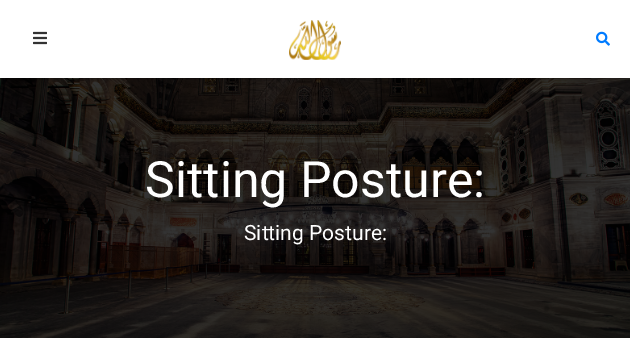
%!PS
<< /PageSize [630 338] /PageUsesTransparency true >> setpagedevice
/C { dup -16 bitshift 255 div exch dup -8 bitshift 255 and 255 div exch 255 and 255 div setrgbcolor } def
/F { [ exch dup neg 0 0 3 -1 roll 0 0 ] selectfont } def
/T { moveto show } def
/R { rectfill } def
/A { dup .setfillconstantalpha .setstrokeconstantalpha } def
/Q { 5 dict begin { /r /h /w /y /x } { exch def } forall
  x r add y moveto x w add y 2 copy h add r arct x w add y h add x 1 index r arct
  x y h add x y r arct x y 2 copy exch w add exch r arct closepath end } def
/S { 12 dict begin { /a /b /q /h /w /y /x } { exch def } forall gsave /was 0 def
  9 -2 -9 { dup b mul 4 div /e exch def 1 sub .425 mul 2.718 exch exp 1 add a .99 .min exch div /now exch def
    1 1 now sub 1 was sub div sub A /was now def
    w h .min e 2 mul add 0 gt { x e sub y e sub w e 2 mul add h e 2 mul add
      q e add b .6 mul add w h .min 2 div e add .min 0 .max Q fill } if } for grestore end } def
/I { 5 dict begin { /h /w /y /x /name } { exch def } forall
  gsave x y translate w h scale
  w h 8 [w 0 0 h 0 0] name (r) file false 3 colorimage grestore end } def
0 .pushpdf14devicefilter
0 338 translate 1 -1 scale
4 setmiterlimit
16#FFFFFF C
0 0 630 338 R
(4.rgb) 0 78 630 260 I
16#000000 C
0 0 630 78 0 2.5 .3 S
16#FFFFFF C
0 0 630 78 R
(1.rgb) 33 31 14 14 I
(2.rgb) 289 20 52 40 I
(3.rgb) 596 31 14 15 I
/Roboto-Regular 50 F
(Sitting Posture:) 145 197 T
/Roboto-Regular 21 F
(Sitting Posture:) 244 240 T
.poppdf14devicefilter showpage
